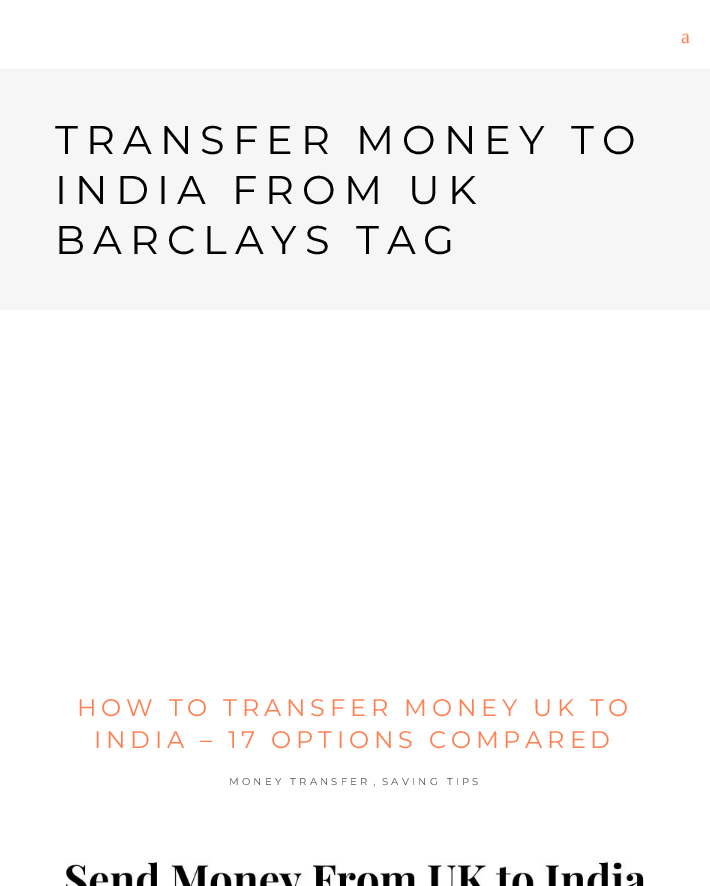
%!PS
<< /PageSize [710 886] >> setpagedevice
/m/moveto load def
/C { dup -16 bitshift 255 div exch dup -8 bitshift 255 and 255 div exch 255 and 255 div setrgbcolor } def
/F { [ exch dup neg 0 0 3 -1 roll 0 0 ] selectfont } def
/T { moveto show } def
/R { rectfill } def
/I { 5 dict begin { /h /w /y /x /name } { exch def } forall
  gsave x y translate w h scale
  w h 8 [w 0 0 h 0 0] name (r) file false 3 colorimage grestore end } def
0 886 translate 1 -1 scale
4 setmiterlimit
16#FFFFFF C
0 0 710 886 R
16#F2F2F2 C
0 69 710 1 R
/LiberationSerif-Regular 20 F
16#FF7F50 C
(a) 681 43 T
16#F6F6F6 C
0 70 710 240 R
/Montserrat-Regular 40 F
16#000000 C
55 154 m 8 0 (TRANSFER MONEY TO) ashow
55 204 m 8 0 (INDIA FROM UK) ashow
55 254 m 8 0 (BARCLAYS TAG) ashow
/Montserrat-Regular 24 F
16#FF7F50 C
77 716 m 4.8 0 (HOW TO TRANSFER MONEY UK TO) ashow
94 748 m 4.8 0 (INDIA – 17 OPTIONS COMPARED) ashow
/Montserrat-Regular 10 F
16#565050 C
229 785 m 3.25 0 (MONEY TRANSFER) ashow
/Montserrat-Regular 13 F
16#959595 C
373 785 m 1 0 (,) ashow
/Montserrat-Regular 10 F
16#565050 C
382 785 m 3.25 0 (SAVING TIPS) ashow
(1.rgb) 65 860 579 26 I
showpage
